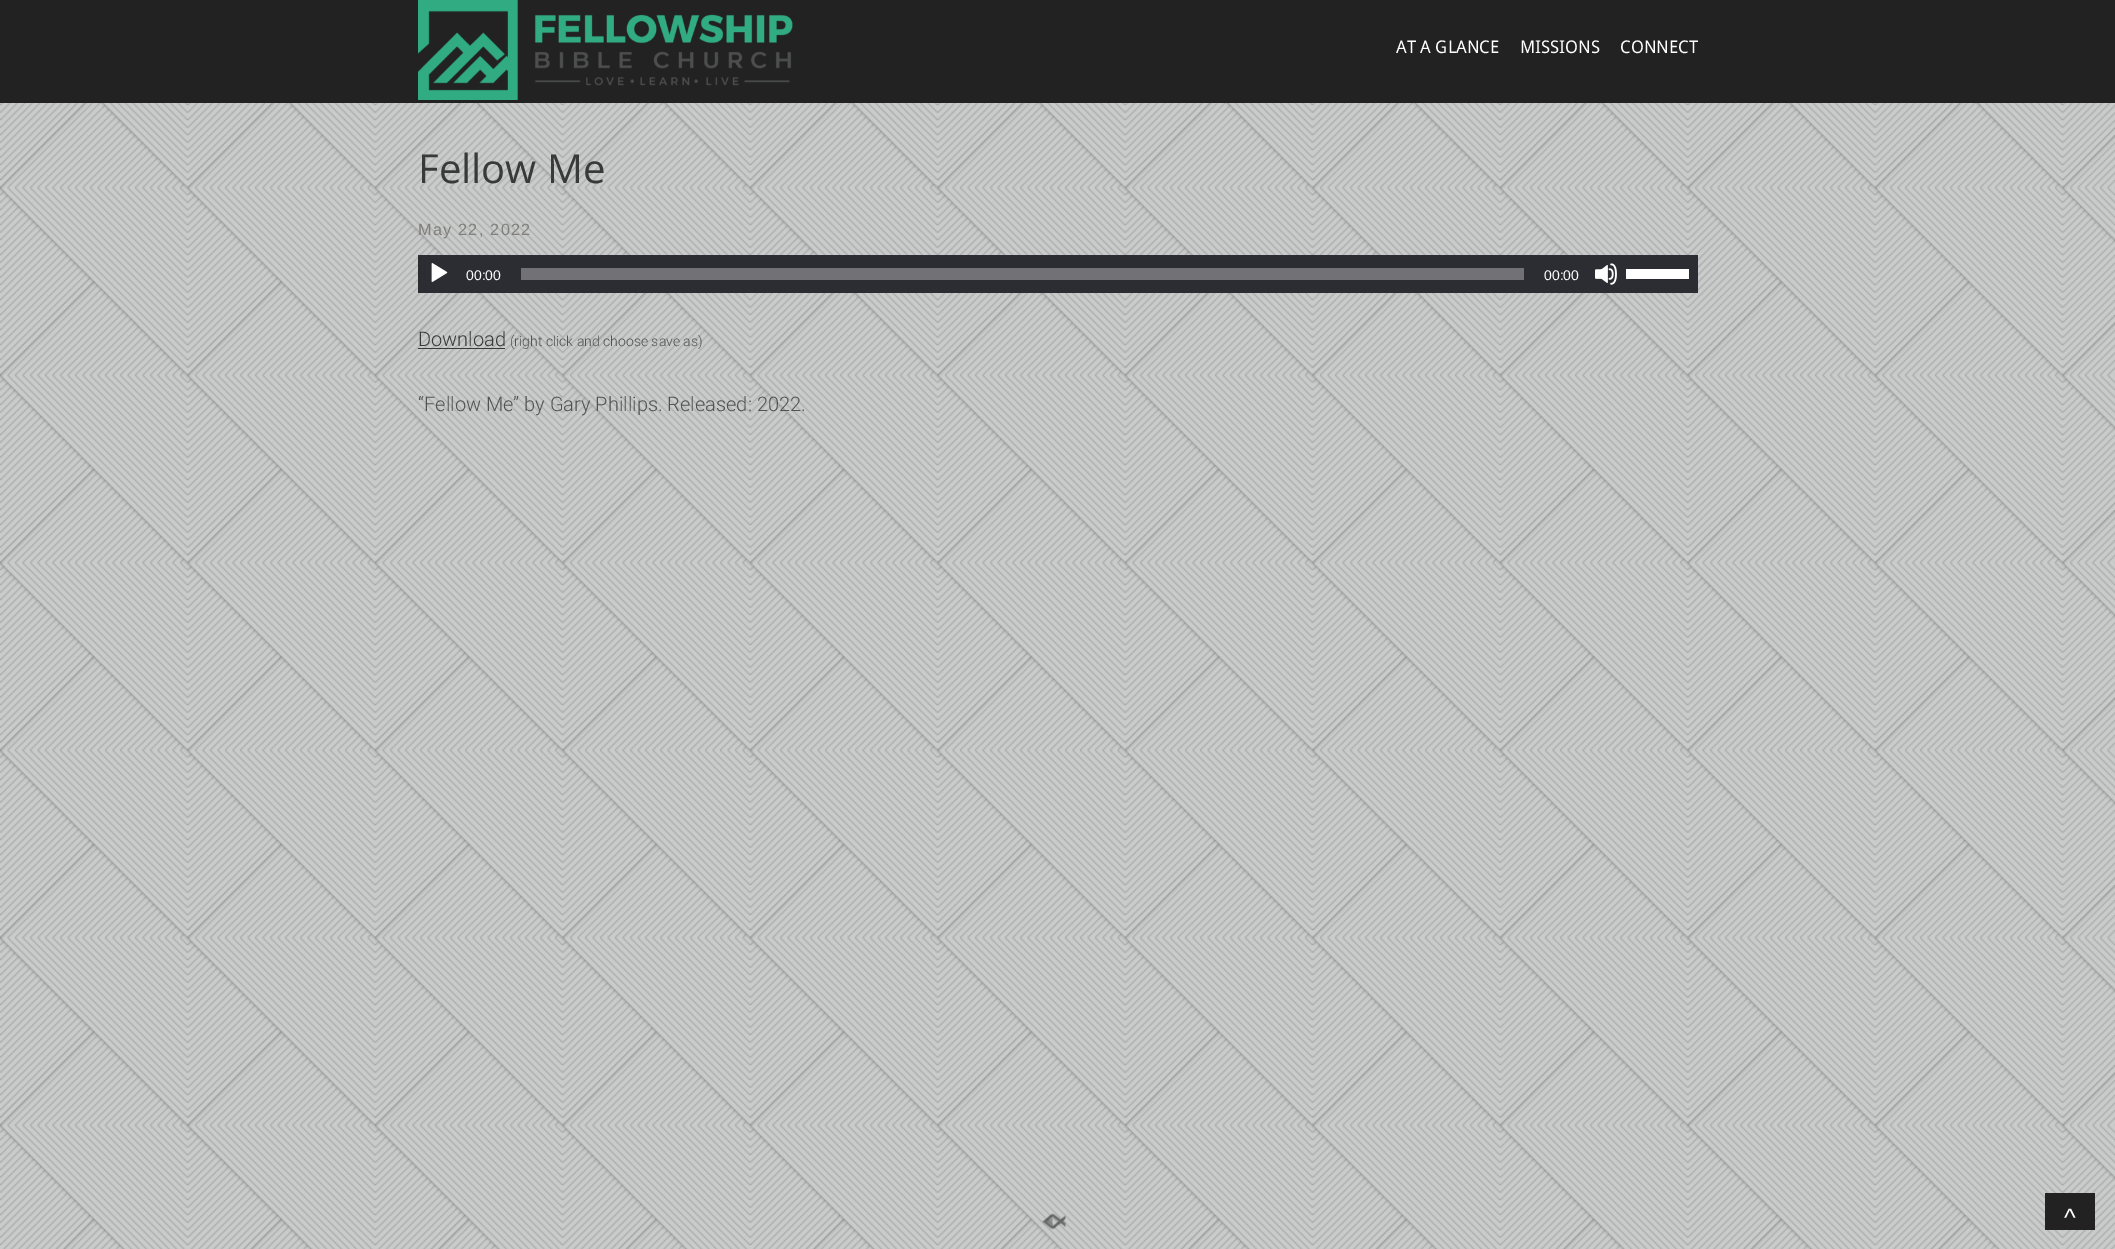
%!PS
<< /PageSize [2115 1249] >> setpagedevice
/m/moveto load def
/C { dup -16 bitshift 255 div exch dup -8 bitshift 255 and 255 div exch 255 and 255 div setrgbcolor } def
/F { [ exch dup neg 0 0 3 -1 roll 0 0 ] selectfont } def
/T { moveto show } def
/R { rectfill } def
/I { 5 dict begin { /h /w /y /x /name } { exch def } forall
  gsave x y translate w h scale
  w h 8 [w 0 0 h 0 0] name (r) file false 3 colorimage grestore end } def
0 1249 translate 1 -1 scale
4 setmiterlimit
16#CACCCB C
0 0 2115 1249 R
(1.rgb) 0 103 2115 1146 I
16#222222 C
0 0 2115 103 R
(2.rgb) 418 0 375 100 I
/DroidSans-Regular 17.5 F
16#FFFFFF C
(AT A GLANCE) 1396 53 T
(MISSIONS) 1520 53 T
(CONNECT) 1620 53 T
/OpenSans-Regular 40 F
16#3A3939 C
(Fellow Me) 418 183 T
/LiberationSans-Regular 16.25 F
16#817F7B C
418 235 m 1.25 0 (May 22, 2022) ashow
16#2C2D33 C
418 255 1280 38 R
(3.rgb) 431 263 17 19 I
/LiberationSans-Regular 14 F
16#FFFFFF C
(00:00) 466 280 T
16#727276 C
521 268 1003 12 R
16#FFFFFF C
(00:00) 1544 280 T
(4.rgb) 1595 263 22 22 I
1626 269 63 10 R
/Roboto-Light 20 F
16#3A3939 C
(Download) 418 346 T
418 348 87 1 R
/Roboto-Light 14 F
16#525252 C
(\(right click and choose save as\)) 510 346 T
/Roboto-Light 20 F
(“Fellow Me” by Gary Phillips. Released: 2022.) 418 411 T
(5.rgb) 1042 1213 24 17 I
16#222222 C
2045 1193 50 37 R
/LiberationSans-Regular 25 F
16#FFFFFF C
(^) 2064 1226 T
showpage
